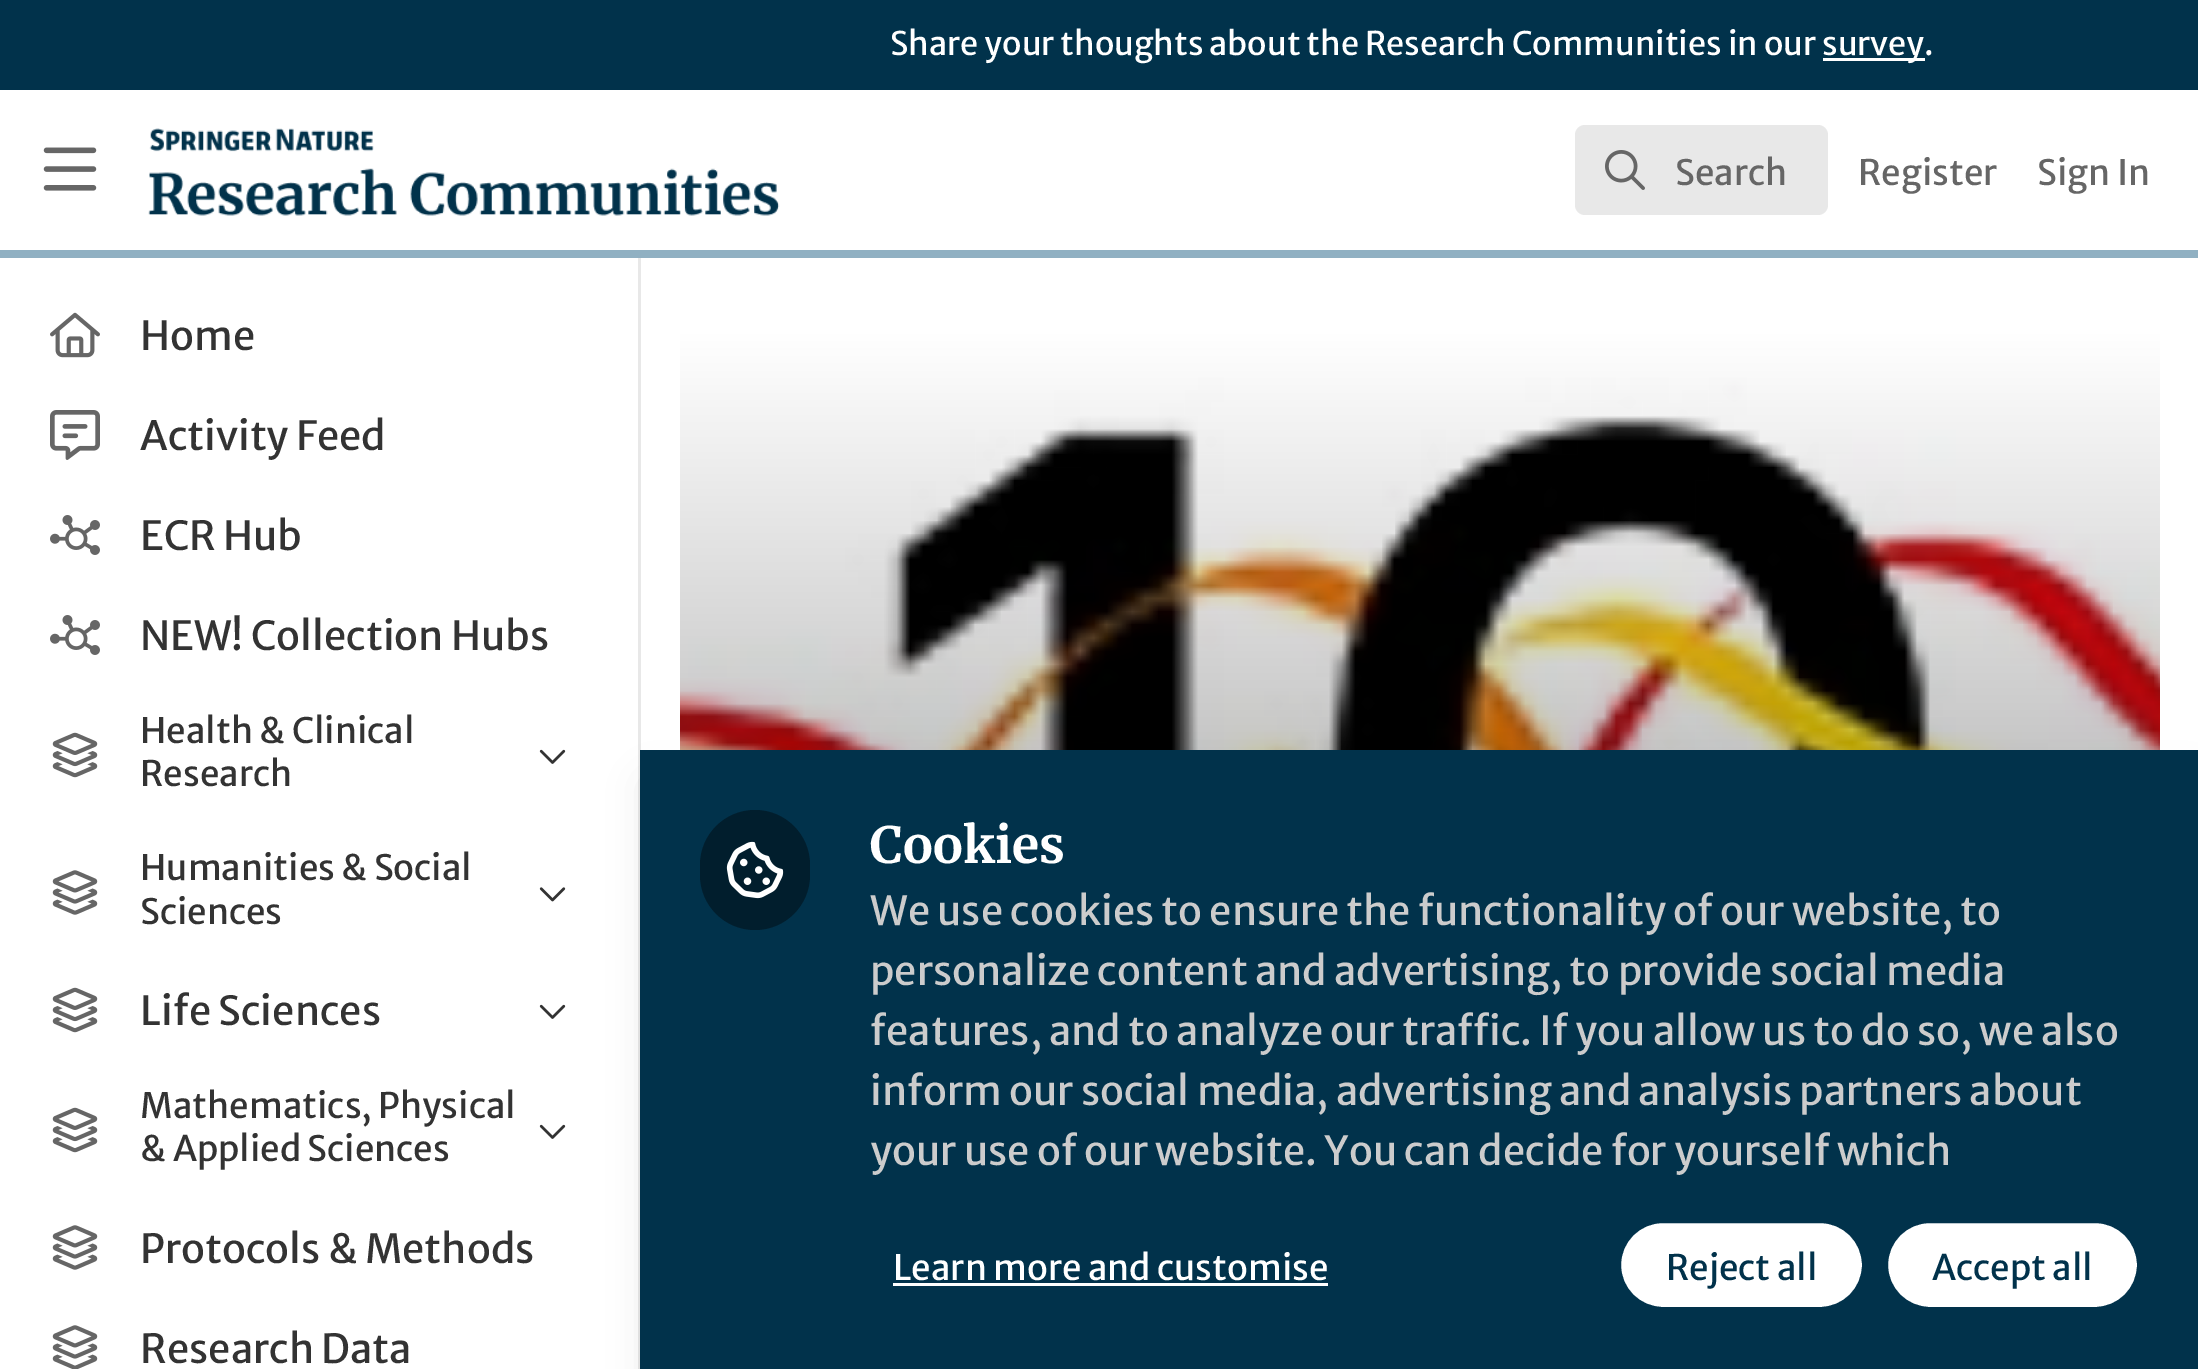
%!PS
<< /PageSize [2198 1369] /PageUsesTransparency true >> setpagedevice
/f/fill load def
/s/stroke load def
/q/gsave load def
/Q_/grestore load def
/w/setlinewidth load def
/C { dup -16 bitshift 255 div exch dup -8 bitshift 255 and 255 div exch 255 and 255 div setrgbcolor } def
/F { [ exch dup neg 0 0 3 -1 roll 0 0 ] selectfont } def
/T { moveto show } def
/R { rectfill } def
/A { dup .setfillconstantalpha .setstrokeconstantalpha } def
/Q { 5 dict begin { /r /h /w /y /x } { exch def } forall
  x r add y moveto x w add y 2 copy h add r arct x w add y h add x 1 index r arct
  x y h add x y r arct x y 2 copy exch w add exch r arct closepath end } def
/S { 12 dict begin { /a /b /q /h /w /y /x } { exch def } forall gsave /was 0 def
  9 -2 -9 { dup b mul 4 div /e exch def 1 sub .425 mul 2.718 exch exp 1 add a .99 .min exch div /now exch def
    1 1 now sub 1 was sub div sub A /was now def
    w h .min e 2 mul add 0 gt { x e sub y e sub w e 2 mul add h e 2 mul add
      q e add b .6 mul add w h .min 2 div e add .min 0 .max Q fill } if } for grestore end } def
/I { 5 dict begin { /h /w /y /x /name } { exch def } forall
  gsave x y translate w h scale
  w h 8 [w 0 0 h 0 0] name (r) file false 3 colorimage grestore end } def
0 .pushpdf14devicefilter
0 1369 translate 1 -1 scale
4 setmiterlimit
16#FFFFFF C
0 0 2198 1369 R
16#01324B C
0 0 2198 90 R
/MerriweatherSans-Regular 32.5 F
16#FFFFFF C
(Share your thoughts about the Research Communities in our) 890 55 T
1823 58 102 3 R
(survey.) 1822 55 T
16#E8E8E8 C
638 250 3 1119 R
16#90B0C2 C
0 250 2198 8 R
(1.rgb) 43 147 54 44 I
(2.rgb) 148 128 632 88 I
16#E8E8E8 C
1575 125 253 90 10 Q f
(3.rgb) 1605 150 40 40 I
/MerriweatherSans-Regular 35 F
16#666666 C
(Search) 1675 185 T
(Register) 1858 185 T
(Sign In) 2037 185 T
(4.rgb) 50 312 50 46 I
/MerriweatherSans-Regular 40 F
16#333333 C
(Home) 140 350 T
(5.rgb) 50 410 50 50 I
(Activity Feed) 140 450 T
(6.rgb) 50 515 50 40 I
(ECR Hub) 140 550 T
(6.rgb) 50 615 50 40 I
(NEW! Collection Hubs) 140 650 T
(7.rgb) 52 732 46 46 I
/MerriweatherSans-Regular 35 F
(Health & Clinical) 140 743 T
(Research) 140 786 T
(8.rgb) 539 749 27 15 I
(9.rgb) 52 870 46 45 I
(Humanities & Social) 140 880 T
(Sciences) 140 924 T
(10.rgb) 539 887 27 15 I
(7.rgb) 52 987 46 46 I
/MerriweatherSans-Regular 40 F
(Life Sciences) 140 1025 T
(8.rgb) 539 1004 27 15 I
(7.rgb) 52 1107 46 46 I
/MerriweatherSans-Regular 35 F
(Mathematics, Physical) 140 1118 T
(& Applied Sciences) 140 1161 T
(8.rgb) 539 1124 27 15 I
(9.rgb) 52 1225 46 45 I
/MerriweatherSans-Regular 40 F
(Protocols & Methods) 140 1263 T
(11.rgb) 52 1325 46 44 I
(Research Data) 140 1363 T
(12.rgb) 680 330 1480 420 I
16#000000 C
648 783 1545 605 0 19 .1 S
16#01324B C
640 750 1558 619 R
16#011E2D C
700 810 110 120 55 Q f
(13.rgb) 726 841 58 58 I
/Merriweather-Bold 50 F
16#FFFFFF C
(Cookies) 870 863 T
/MerriweatherSans-Regular 40 F
16#CCCCCC C
(We use cookies to ensure the functionality of our website, to) 870 925 T
(personalize content and advertising, to provide social media) 870 985 T
(features, and to analyze our traffic. If you allow us to do so, we also) 870 1045 T
(inform our social media, advertising and analysis partners about) 870 1105 T
(your use of our website. You can decide for yourself which) 870 1165 T
/MerriweatherSans-Regular 35 F
16#FFFFFF C
(Learn more and customise) 893 1280 T
893 1283 435 3 R
1619.5 1221.5 244 87 43.5 Q q f Q_
16#01324B C
3 w
s
(Reject all) 1666 1280 T
16#FFFFFF C
1886.5 1221.5 252 87 43.5 Q q f Q_
16#01324B C
s
(Accept all) 1932 1280 T
.poppdf14devicefilter showpage
